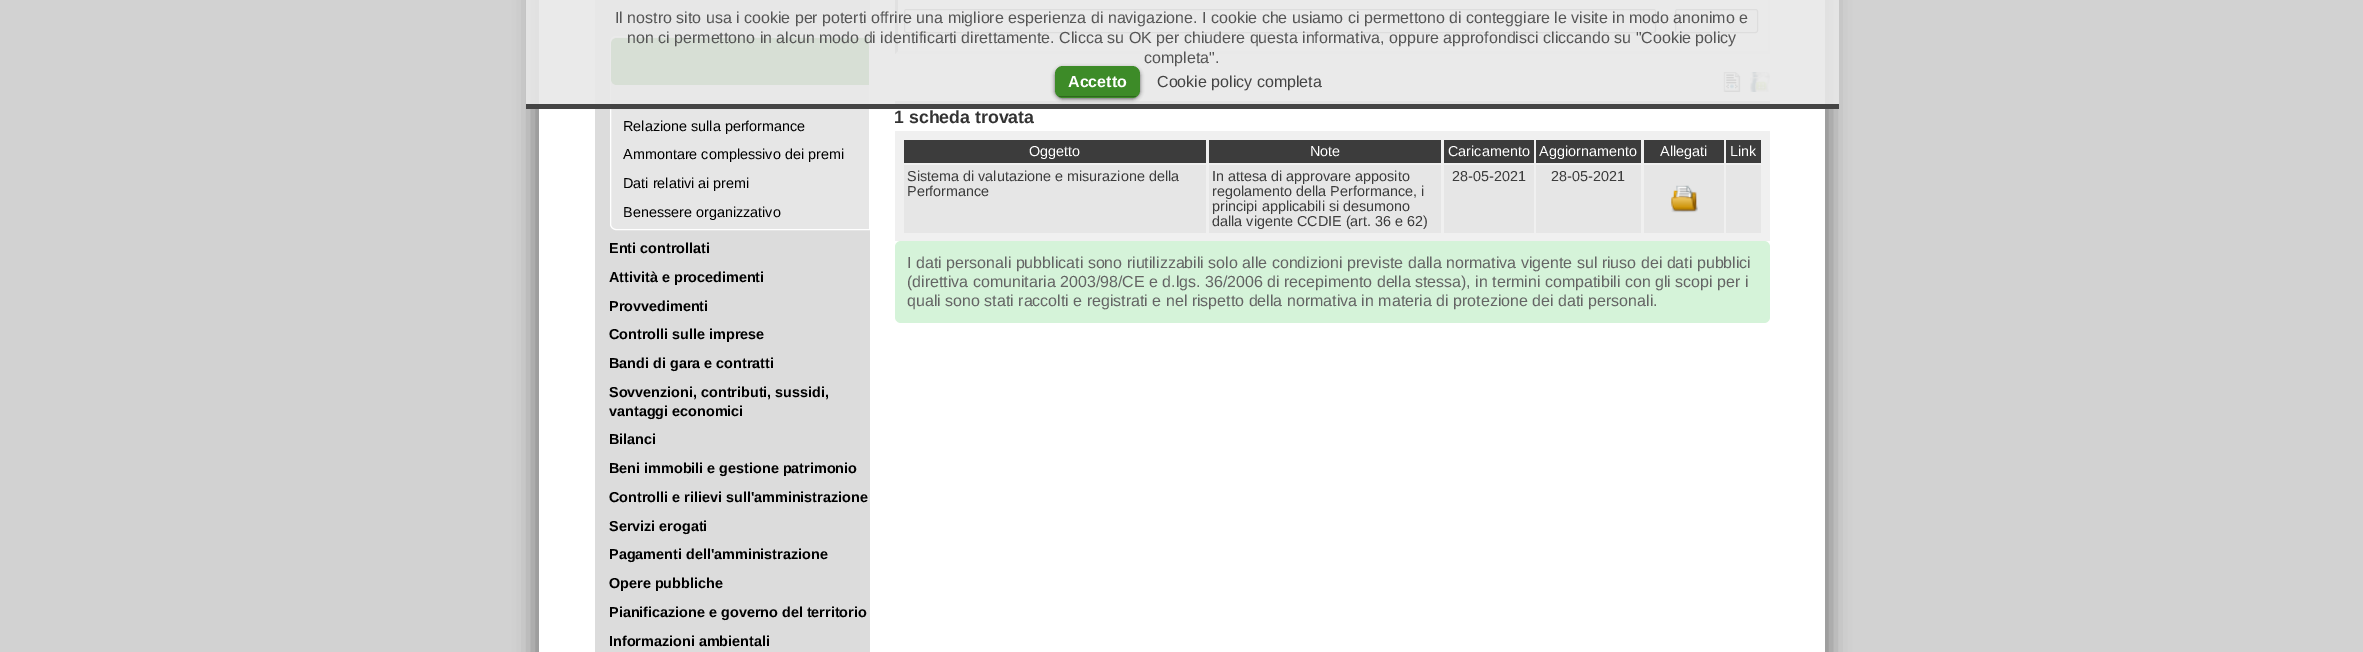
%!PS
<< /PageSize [2363 652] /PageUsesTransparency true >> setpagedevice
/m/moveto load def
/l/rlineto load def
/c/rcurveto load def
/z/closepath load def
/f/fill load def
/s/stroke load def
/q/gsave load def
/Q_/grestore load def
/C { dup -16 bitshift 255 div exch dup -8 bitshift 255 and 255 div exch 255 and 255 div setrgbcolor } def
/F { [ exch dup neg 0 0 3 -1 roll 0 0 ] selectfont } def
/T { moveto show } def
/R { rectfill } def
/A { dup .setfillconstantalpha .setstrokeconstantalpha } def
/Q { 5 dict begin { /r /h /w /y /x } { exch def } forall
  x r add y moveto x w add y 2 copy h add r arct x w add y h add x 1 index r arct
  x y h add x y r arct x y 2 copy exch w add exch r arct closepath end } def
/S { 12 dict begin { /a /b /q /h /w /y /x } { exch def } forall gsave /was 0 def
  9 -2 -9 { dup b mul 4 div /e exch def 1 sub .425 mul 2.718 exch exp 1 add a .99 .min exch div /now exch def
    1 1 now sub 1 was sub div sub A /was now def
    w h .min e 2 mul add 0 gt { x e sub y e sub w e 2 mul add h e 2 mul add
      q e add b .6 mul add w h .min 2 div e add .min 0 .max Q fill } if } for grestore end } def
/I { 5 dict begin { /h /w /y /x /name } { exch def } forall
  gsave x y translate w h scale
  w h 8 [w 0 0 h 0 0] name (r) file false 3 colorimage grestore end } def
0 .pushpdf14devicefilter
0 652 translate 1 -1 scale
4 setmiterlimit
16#D2D2D2 C
0 0 2363 652 R
16#888888 C
533 -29 1298 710 0 9.5 1 S
16#FFFFFF C
539 0 1286 652 R
16#DCDCDC C
595 0 275 652 R
16#E6E6E6 C
616 36.5 m 253.5 0 l 0 193 l -253.5 0 l -3 0 -5.5 -2.5 -5.5 -5.5 c 0 -182 l 0 -3 2.5 -5.5 5.5 -5.5 c z q f Q_
16#FFFFFF C
s
16#3D8B28 C
617 38 m 252 0 l 0 47 l -252 0 l -3.5 0 -6 -2.5 -6 -6 c 0 -35 l 0 -3.5 2.5 -6 6 -6 c z f
16#EFEFEF C
1770 -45 m 0 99 l -2 -3 l 0 -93 l z f
1770 54 m -875 0 l 3 -3 l 870 0 l z f
16#9F9F9F C
895 54 m 0 -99 l 3 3 l 0 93 l z f
16#767676 C
904.5 9.5 751 23 2 Q s
16#EFEFEF C
1675.5 9.5 82 23 2 Q q f Q_
16#767676 C
s
(1.rgb) 1723 72 18 20 I
(2.rgb) 1750 72 20 20 I
16#B3B3B3 C
895 101 875 3 R
0.9 A
16#E8E8E8 C
526 0 1313 104 R
1 A
16#444444 C
526 104 1313 5 R
/LiberationSans-Regular 16 F
16#555555 C
(Il nostro sito usa i cookie per poterti offrire una migliore esperienza di navigazione. I cookie che usiamo ci permettono di conteggiare le visite in modo anonimo e) 615 23 T
(non ci permettono in alcun modo di identificarti direttamente. Clicca su OK per chiudere questa informativa, oppure approfondisci cliccando su "Cookie policy) 627 43 T
(completa".) 1144 63 T
16#000000 C
1055 68 85 31 8 2 .6 S
16#3D8B28 C
1055 66 85 32 8 Q f
16#2E681E C
1059 96 77 1 R
/LiberationSans-Bold 16 F
16#FFFFFF C
(Accetto) 1068 87 T
/LiberationSans-Regular 16 F
16#444444 C
(Cookie policy completa) 1157 87 T
/LiberationSans-Regular 14.4 F
16#000000 C
(Relazione sulla performance) 623 131 T
(Ammontare complessivo dei premi) 623 159 T
(Dati relativi ai premi) 623 188 T
(Benessere organizzativo) 623 217 T
/LiberationSans-Bold 14.4 F
(Enti controllati) 609 253 T
(Attività e procedimenti) 609 282 T
(Provvedimenti) 609 311 T
(Controlli sulle imprese) 609 339 T
(Bandi di gara e contratti) 609 368 T
(Sovvenzioni, contributi, sussidi,) 609 397 T
(vantaggi economici) 609 416 T
(Bilanci) 609 444 T
(Beni immobili e gestione patrimonio) 609 473 T
(Controlli e rilievi sull'amministrazione) 609 502 T
(Servizi erogati) 609 531 T
(Pagamenti dell'amministrazione) 609 559 T
(Opere pubbliche) 609 588 T
(Pianificazione e governo del territorio) 609 617 T
(Informazioni ambientali) 609 646 T
/LiberationSans-Bold 17.75 F
16#333333 C
(1 scheda trovata) 894 123 T
16#F0F0F0 C
895 131 875 110 R
16#3C3C3C C
904 140 302 23 R
/LiberationSans-Regular 14.4 F
16#FFFFFF C
(Oggetto) 1029 156 T
16#3C3C3C C
1209 140 232 23 R
16#FFFFFF C
(Note) 1310 156 T
16#3C3C3C C
1444 140 90 23 R
16#FFFFFF C
(Caricamento) 1448 156 T
16#3C3C3C C
1536 140 105 23 R
16#FFFFFF C
(Aggiornamento) 1539 156 T
16#3C3C3C C
1644 140 80 23 R
16#FFFFFF C
(Allegati) 1660 156 T
16#3C3C3C C
1726 140 35 23 R
16#FFFFFF C
(Link) 1730 156 T
16#E6E6E6 C
904 165 302 68 R
16#3C3C3C C
(Sistema di valutazione e misurazione della) 907 181 T
(Performance) 907 196 T
16#E6E6E6 C
1209 165 232 68 R
16#3C3C3C C
(In attesa di approvare apposito) 1212 181 T
(regolamento della Performance, i) 1212 196 T
(principi applicabili si desumono) 1212 211 T
(dalla vigente CCDIE \(art. 36 e 62\)) 1212 226 T
16#E6E6E6 C
1444 165 90 68 R
16#3C3C3C C
(28-05-2021) 1452 181 T
16#E6E6E6 C
1536 165 105 68 R
16#3C3C3C C
(28-05-2021) 1551 181 T
16#E6E6E6 C
1644 165 80 68 R
(3.rgb) 1671 185 27 28 I
1726 165 35 68 R
16#D5F3D9 C
895 241 875 82 6 Q f
/LiberationSans-Regular 16 F
16#646464 C
(I dati personali pubblicati sono riutilizzabili solo alle condizioni previste dalla normativa vigente sul riuso dei dati pubblici) 907 268 T
(\(direttiva comunitaria 2003/98/CE e d.lgs. 36/2006 di recepimento della stessa\), in termini compatibili con gli scopi per i) 907 287 T
(quali sono stati raccolti e registrati e nel rispetto della normativa in materia di protezione dei dati personali.) 907 306 T
.poppdf14devicefilter showpage
